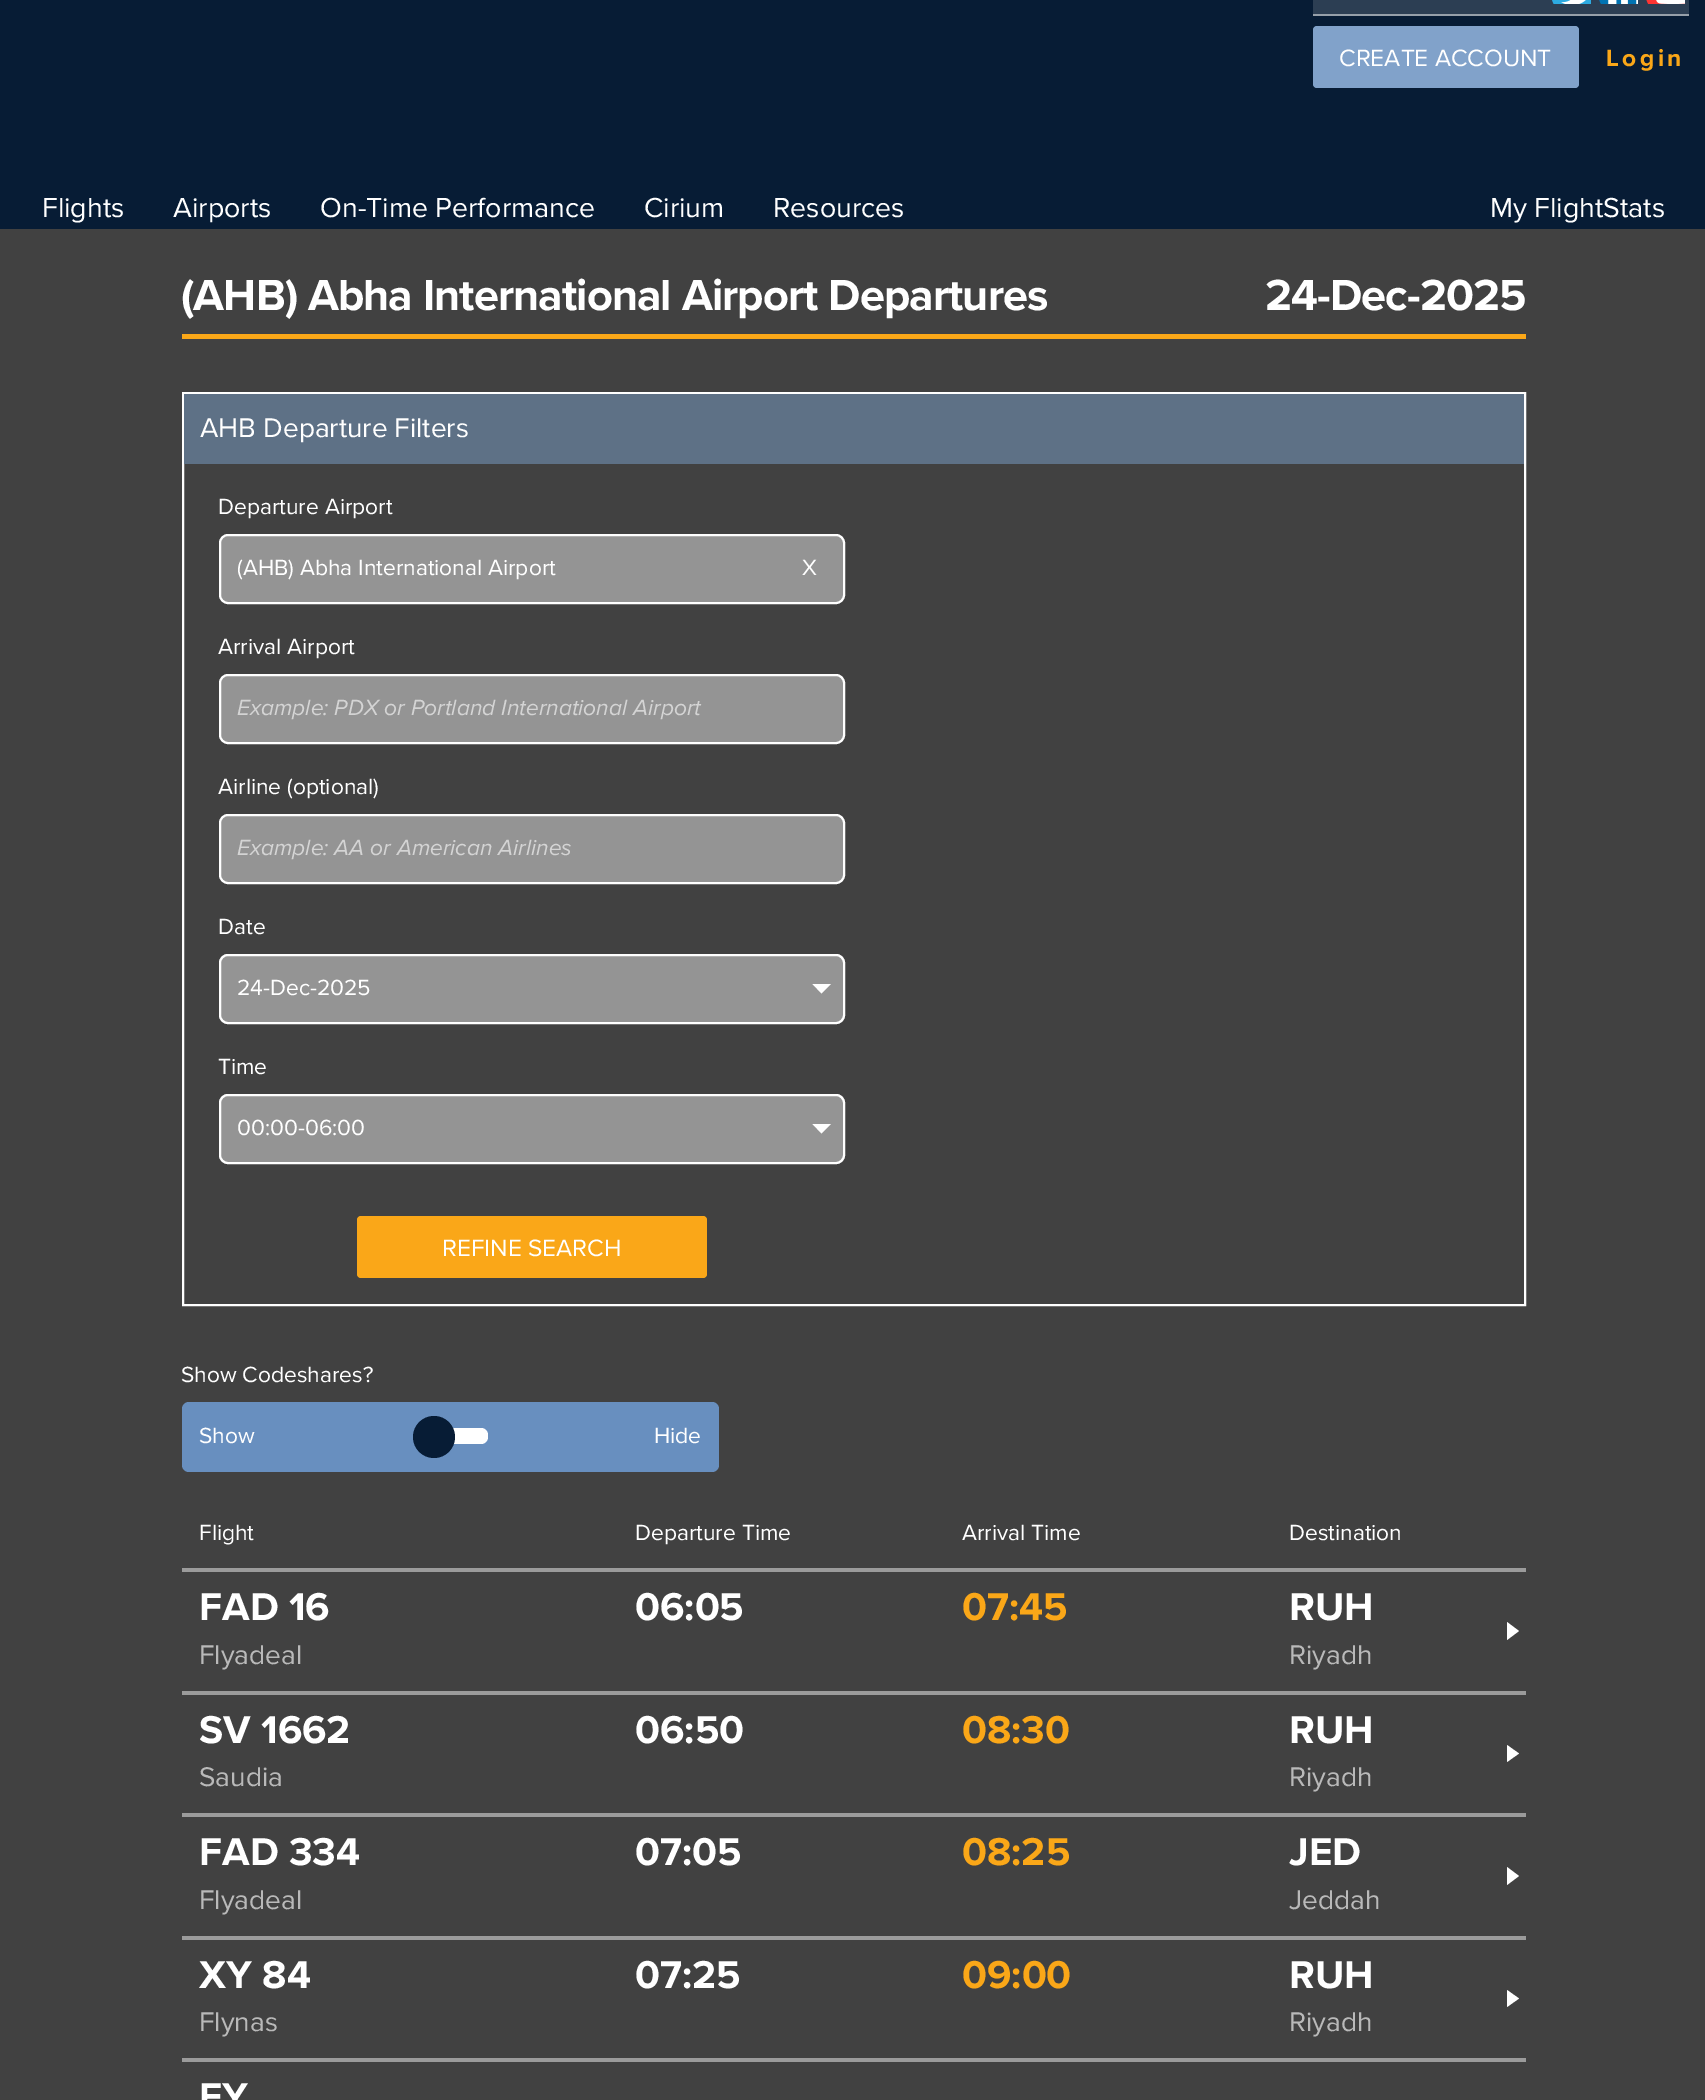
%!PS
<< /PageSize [1705 2100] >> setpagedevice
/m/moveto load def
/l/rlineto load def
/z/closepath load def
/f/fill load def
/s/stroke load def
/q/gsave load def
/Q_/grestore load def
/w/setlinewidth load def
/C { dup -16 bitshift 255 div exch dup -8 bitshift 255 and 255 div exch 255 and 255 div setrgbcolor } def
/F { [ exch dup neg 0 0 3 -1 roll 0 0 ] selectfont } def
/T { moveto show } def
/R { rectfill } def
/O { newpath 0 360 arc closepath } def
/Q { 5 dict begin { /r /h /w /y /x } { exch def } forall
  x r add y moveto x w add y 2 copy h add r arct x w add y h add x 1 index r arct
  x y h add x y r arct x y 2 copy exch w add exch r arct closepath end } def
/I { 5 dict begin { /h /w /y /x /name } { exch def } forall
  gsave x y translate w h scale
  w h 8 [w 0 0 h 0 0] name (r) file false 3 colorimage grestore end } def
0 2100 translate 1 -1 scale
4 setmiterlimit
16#414141 C
0 0 1705 2100 R
16#071C35 C
0 0 1705 229 R
16#2C3E53 C
1313 0 376 14 R
16#969FA9 C
1313 14 376 2 R
(1.rgb) 1552 0 39 4 I
(2.rgb) 1599 0 39 4 I
(3.rgb) 1646 0 39 4 I
16#81A2CA C
1313 26 266 62 4 Q f
/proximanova-Regular 24.5 F
16#FFFFFF C
(CREATE ACCOUNT) 1339 66 T
/proximanova-Bold 24.5 F
16#FAA718 C
1606 66 m 3.5 0 (Login) ashow
/proximanova-Regular 28.5 F
16#FFFFFF C
(Flights) 42 217 T
(Airports) 173 217 T
(On-Time Performance) 320 217 T
(Cirium) 644 217 T
(Resources) 773 217 T
(My FlightStats) 1490 217 T
16#FAA718 C
182 334 1344 5 R
/proximanova-Bold 45.1 F
16#FFFFFF C
181 310 m -.9 0 (\(AHB\) Abha International Airport Departures) ashow
1265 310 m -.9 0 (24-Dec-2025) ashow
2 w
183 393 1342 912 rectstroke
16#5E7186 C
184 394 1340 70 R
/proximanova-Regular 28 F
16#FFFFFF C
(AHB Departure Filters) 200 437 T
/proximanova-Regular 22.75 F
(Departure Airport) 218 514 T
16#949494 C
220 535 624 68 8 Q q f Q_
16#FFFFFF C
s
(\(AHB\) Abha International Airport) 237 575 T
(X) 802 575 T
(Arrival Airport) 218 654 T
16#949494 C
220 675 624 68 8 Q q f Q_
16#FFFFFF C
s
/proximanova-Italic 22.75 F
16#D4D4D4 C
(Example: PDX or Portland International Airport) 237 715 T
/proximanova-Regular 22.75 F
16#FFFFFF C
(Airline \(optional\)) 218 794 T
16#949494 C
220 815 624 68 8 Q q f Q_
16#FFFFFF C
s
/proximanova-Italic 22.75 F
16#D4D4D4 C
(Example: AA or American Airlines) 237 855 T
/proximanova-Regular 22.75 F
16#FFFFFF C
(Date) 218 934 T
16#949494 C
219 954 626 70 9 Q f
16#FFFFFF C
812.5 984 m 18.5 0 l -9.5 9.5 l z f
220 955 624 68 8 Q s
(24-Dec-2025) 237 995 T
(Time) 218 1074 T
16#949494 C
219 1094 626 70 9 Q f
16#FFFFFF C
812.5 1124 m 18.5 0 l -9.5 9.5 l z f
220 1095 624 68 8 Q s
(00:00-06:00) 237 1135 T
16#FAA718 C
357 1216 350 62 4 Q f
/proximanova-Regular 24.5 F
16#FFFFFF C
(REFINE SEARCH) 442 1256 T
/proximanova-Regular 22.75 F
(Show Codeshares?) 181 1382 T
16#688FBF C
182 1402 537 70 7 Q f
16#FFFFFF C
(Show) 199 1443 T
418 1428 70 16 7 Q f
16#071C35 C
434 1437 21 O f
16#FFFFFF C
(Hide) 654 1443 T
16#9B9B9B C
182 1568 1344 4 R
16#FFFFFF C
(Flight) 199 1540 T
(Departure Time) 635 1540 T
(Arrival Time) 962 1540 T
(Destination) 1289 1540 T
16#9B9B9B C
182 1691 1344 4 R
/proximanova-Bold 40.25 F
16#FFFFFF C
(FAD 16) 199 1620 T
(06:05) 635 1620 T
16#FAA718 C
(07:45) 962 1620 T
16#FFFFFF C
(RUH) 1289 1620 T
1507 1640 m 0 -18 l 12 9 l z f
/proximanova-Regular 28 F
16#B9B9B9 C
(Flyadeal) 199 1664 T
(Riyadh) 1289 1664 T
16#9B9B9B C
182 1813 1344 4 R
/proximanova-Bold 40.25 F
16#FFFFFF C
(SV 1662) 199 1743 T
(06:50) 635 1743 T
16#FAA718 C
(08:30) 962 1743 T
16#FFFFFF C
(RUH) 1289 1743 T
1507 1762 m 0 -17 l 12 8.5 l z f
/proximanova-Regular 28 F
16#B9B9B9 C
(Saudia) 199 1786 T
(Riyadh) 1289 1786 T
16#9B9B9B C
182 1936 1344 4 R
/proximanova-Bold 40.25 F
16#FFFFFF C
(FAD 334) 199 1865 T
(07:05) 635 1865 T
16#FAA718 C
(08:25) 962 1865 T
16#FFFFFF C
(JED) 1289 1865 T
1507 1885 m 0 -18 l 12 9 l z f
/proximanova-Regular 28 F
16#B9B9B9 C
(Flyadeal) 199 1909 T
(Jeddah) 1289 1909 T
16#9B9B9B C
182 2058 1344 4 R
/proximanova-Bold 40.25 F
16#FFFFFF C
(XY 84) 199 1988 T
(07:25) 635 1988 T
16#FAA718 C
(09:00) 962 1988 T
16#FFFFFF C
(RUH) 1289 1988 T
1507 2007 m 0 -17 l 12 8.5 l z f
/proximanova-Regular 28 F
16#B9B9B9 C
(Flynas) 199 2031 T
(Riyadh) 1289 2031 T
/proximanova-Bold 40.25 F
16#FFFFFF C
(EY) 199 2110 T
showpage
